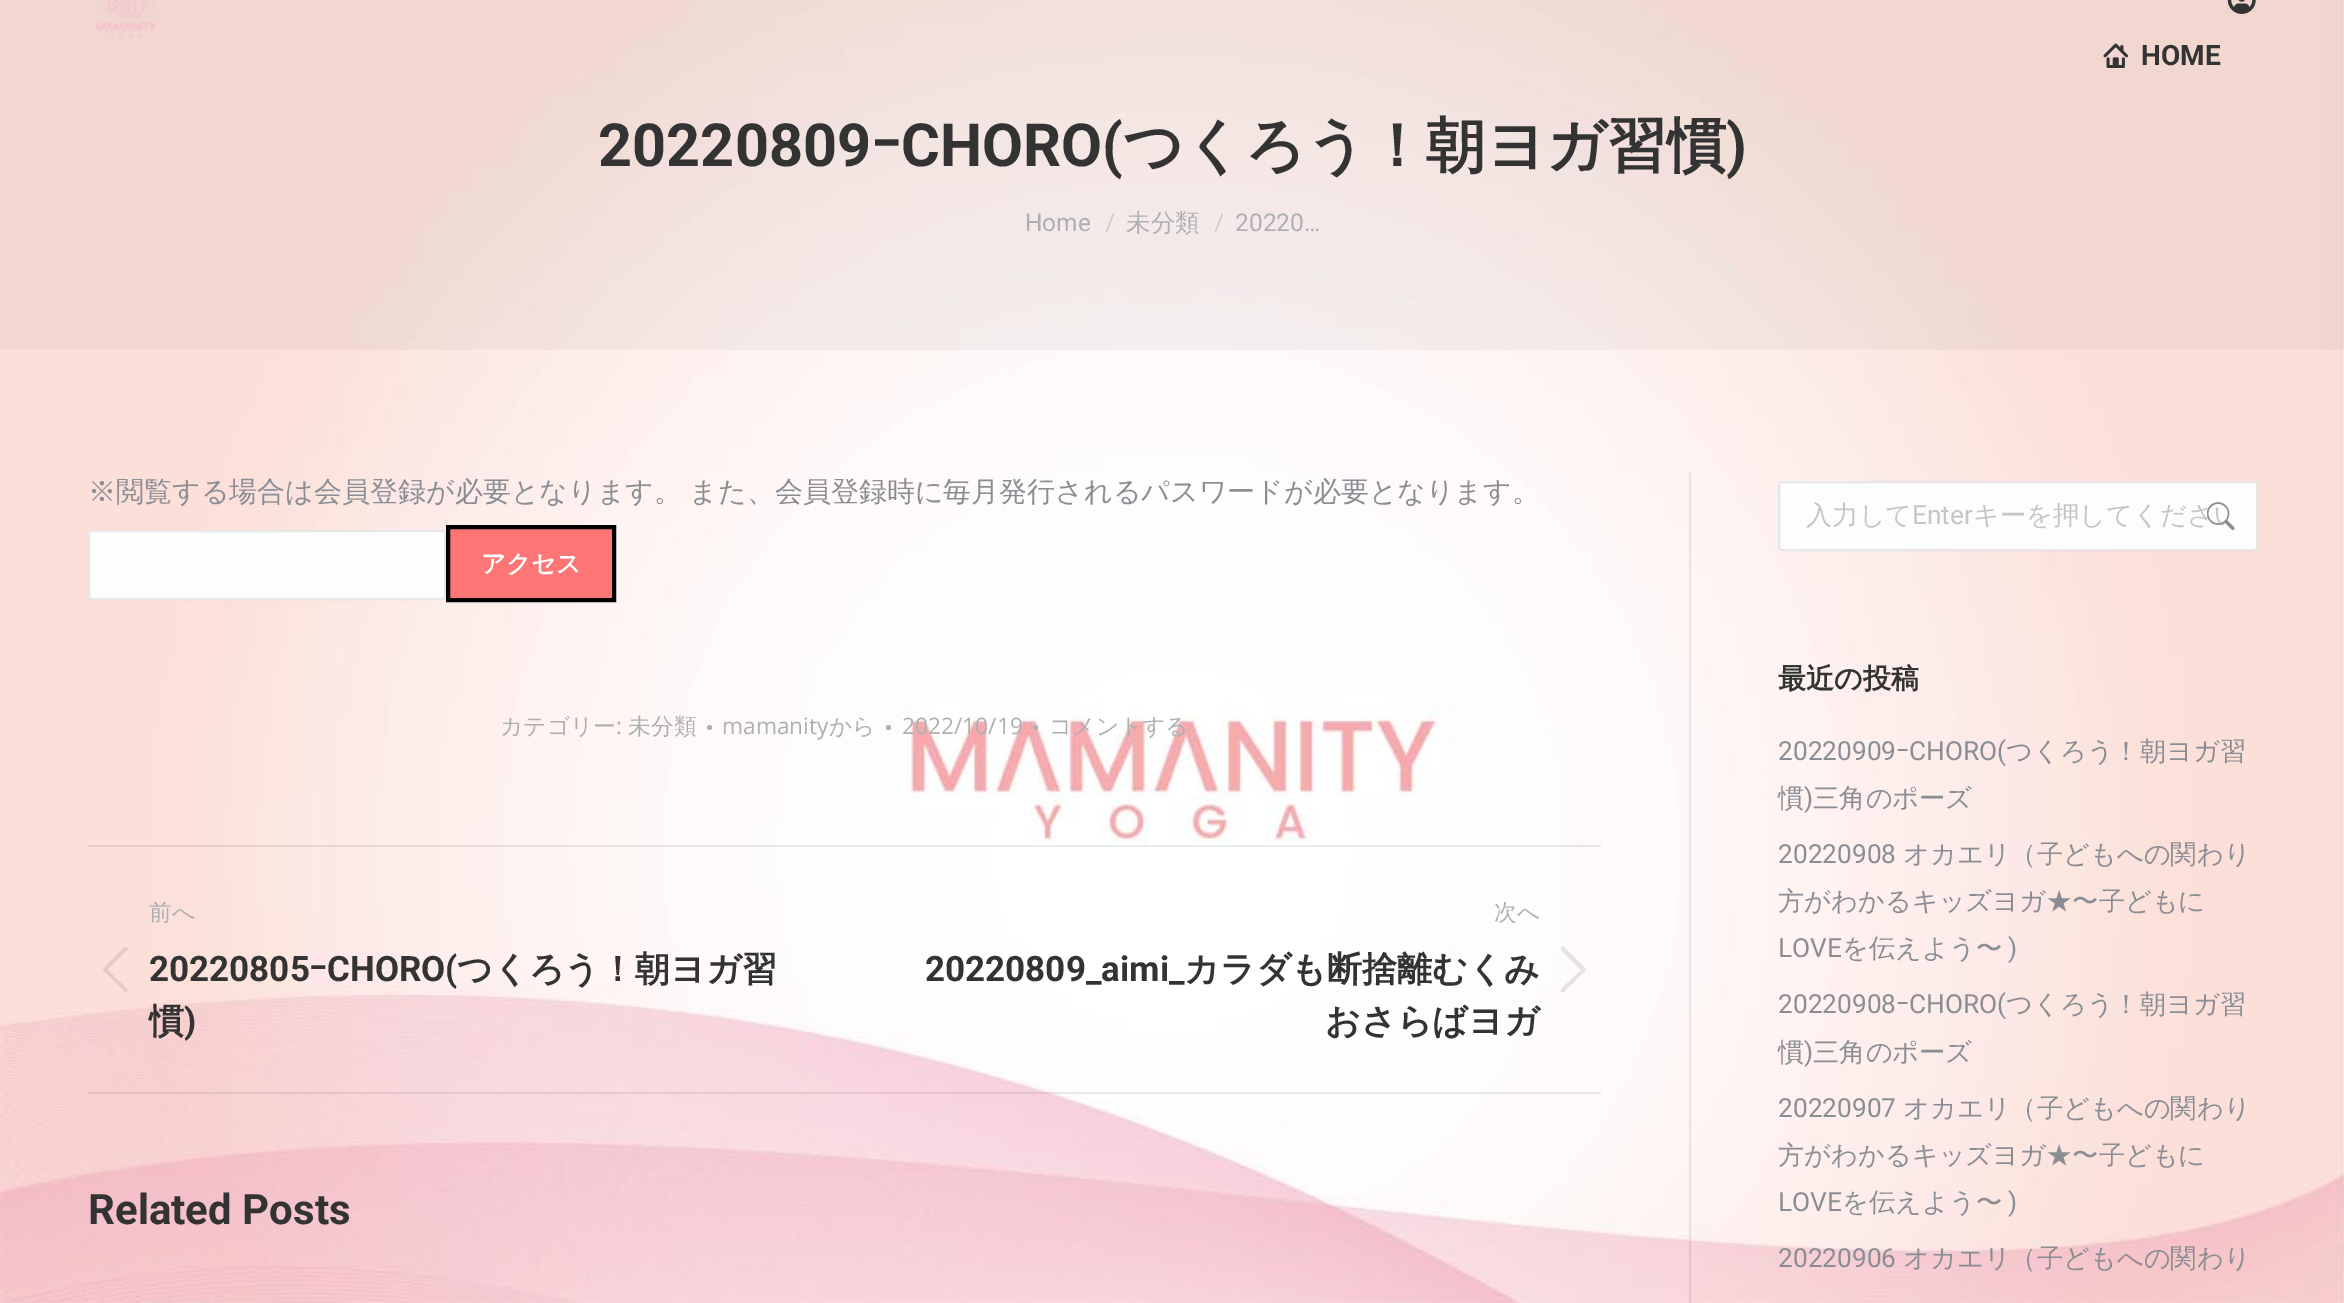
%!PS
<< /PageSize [2344 1303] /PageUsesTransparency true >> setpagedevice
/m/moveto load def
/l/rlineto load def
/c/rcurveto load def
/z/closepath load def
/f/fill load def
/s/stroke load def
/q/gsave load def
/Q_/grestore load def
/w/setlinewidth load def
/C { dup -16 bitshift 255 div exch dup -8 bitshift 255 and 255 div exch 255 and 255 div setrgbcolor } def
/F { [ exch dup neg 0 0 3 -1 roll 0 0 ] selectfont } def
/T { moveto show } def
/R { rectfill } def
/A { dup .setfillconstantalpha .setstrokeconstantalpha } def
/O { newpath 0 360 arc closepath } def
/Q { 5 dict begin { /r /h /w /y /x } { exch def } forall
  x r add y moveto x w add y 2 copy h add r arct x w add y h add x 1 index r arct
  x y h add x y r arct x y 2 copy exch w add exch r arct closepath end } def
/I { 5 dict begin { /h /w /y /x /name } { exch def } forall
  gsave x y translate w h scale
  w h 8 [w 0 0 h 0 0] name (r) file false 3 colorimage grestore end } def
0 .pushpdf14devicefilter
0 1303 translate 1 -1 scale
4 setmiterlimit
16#FFFFFF C
0 0 2344 1303 R
(1.rgb) 0 0 2344 1303 I
0.04 A
16#000000 C
0 0 2344 350 R
1 A
(2.rgb) 96 0 60 39 I
(3.rgb) 2227 0 29 14 I
(4.rgb) 2103 43 25 25 I
/Roboto-Bold 28 F
16#333333 C
(HOME) 2141 65 T
/Roboto-Bold 59.5 F
(20220809) 598 166 T
/IPAPGothic-Bold 59.5 F
(ｰ) 871 166 T
/Roboto-Bold 59.5 F
(CHORO\() 901 166 T
/WenQuanYiZenHei-Bold 59.5 F
(つくろう！朝ヨガ習慣) 1123 166 T
/Roboto-Bold 59.5 F
(\)) 1726 166 T
/Roboto-Regular 24.5 F
16#ADAFB3 C
(Home) 1025 231 T
16#D1CDCE C
(/) 1105 231 T
/WenQuanYiZenHei-Medium 24.5 F
16#ADAFB3 C
(未分類) 1126 231 T
/Roboto-Regular 24.5 F
16#D1CDCE C
(/) 1214 231 T
16#ADAFB3 C
(20220…) 1235 231 T
/WenQuanYiZenHei-Medium 28 F
16#8B8D94 C
88 501 m -1 0 32 (※閲覧する場合は会員登録が必要となります。 また、会員登録時に毎月発行されるパスワードが必要となります。) widthshow
16#FDFDFD C
88 530 358 70 4 Q f
0.11 A
16#333333 C
2 w
89 531 356 68 3 Q s
1 A
16#FD7575 C
448 527 m 166 0 l 0 73 l -166 0 l z q f Q_
16#000000 C
4 w
s
/WenQuanYiZenHei-Bold 24.5 F
16#FFFFFF C
(アクセス) 481 572 T
/WenQuanYiZenHei-Medium 22.75 F
16#ADAFB3 C
(カテゴリー) 500 734 T
/OpenSans-Regular 22.75 F
(:) 616 734 T
/WenQuanYiZenHei-Medium 22.75 F
(未分類) 628 734 T
709.5 727.5 2.5 O f
/OpenSans-Regular 22.75 F
(mamanity) 722 734 T
/WenQuanYiZenHei-Medium 22.75 F
(から) 829 734 T
888.5 727.5 2.5 O f
/OpenSans-Regular 22.75 F
(2022/10/19) 902 734 T
1035.5 727.5 2.5 O f
/WenQuanYiZenHei-Medium 22.75 F
(コメントする) 1049 734 T
0.08 A
16#000000 C
88 845 1513 2 R
88 1092 1513 2 R
1 A
16#ADAFB3 C
(前へ) 149 920 T
(5.rgb) 103 947 25 45 I
/Roboto-Bold 35 F
16#333333 C
(20220805) 149 981 T
/IPAPGothic-Bold 35 F
(ｰ) 309 981 T
/Roboto-Bold 35 F
(CHORO\() 327 981 T
/WenQuanYiZenHei-Bold 35 F
(つくろう！朝ヨガ習) 457 981 T
(慣) 149 1033 T
/Roboto-Bold 35 F
(\)) 184 1033 T
/WenQuanYiZenHei-Medium 22.75 F
16#ADAFB3 C
(次へ) 1494 920 T
/Roboto-Bold 35 F
16#333333 C
(20220809_aimi_) 925 981 T
/WenQuanYiZenHei-Bold 35 F
(カラダも断捨離むくみ) 1184 981 T
(おさらばヨガ) 1325 1033 T
0.12 A
1561 947 m 1 -1 2 -1 3 0 c 21 21 l 1 1 1 2 0 3 c -21 21 l -1 0 -2 0 -3 0 c 0 -1 0 -2 0 -3 c 20 -19 l -20 -20 l z f
/Roboto-Bold 42 F
1 A
(Related Posts) 88 1224 T
0.08 A
16#000000 C
1689 473 2 830 R
1 A
16#FDFDFD C
1778 481 480 70 4 Q f
0.11 A
16#333333 C
2 w
1779 482 478 68 3 Q s
/WenQuanYiZenHei-Medium 26.25 F
1 A
16#C4C5C9 C
(入力して) 1806 524 T
/Roboto-Regular 26.25 F
(Enter) 1912 524 T
q
1806 501 424 33 rectclip
/WenQuanYiZenHei-Medium 26.25 F
(キーを押してください) 1973 524 T
Q_
(6.rgb) 2207 502 28 28 I
/WenQuanYiZenHei-Bold 28 F
16#333333 C
(最近の投稿) 1778 688 T
/Roboto-Regular 26.25 F
16#8B8D94 C
(20220909) 1778 760 T
/IPAPGothic-Regular 26.25 F
(ｰ) 1896 760 T
/Roboto-Regular 26.25 F
(CHORO\() 1909 760 T
/WenQuanYiZenHei-Medium 26.25 F
(つくろう！朝ヨガ習) 2006 760 T
(慣) 1778 807 T
/Roboto-Regular 26.25 F
(\)) 1804 807 T
/WenQuanYiZenHei-Medium 26.25 F
(三角のポーズ) 1813 807 T
/Roboto-Regular 26.25 F
(20220908) 1778 863 T
/WenQuanYiZenHei-Medium 26.25 F
(オカエリ（子どもへの関わり) 1903 863 T
(方がわかるキッズヨガ★〜子どもに) 1778 910 T
/Roboto-Regular 26.25 F
(LOVE) 1778 957 T
/WenQuanYiZenHei-Medium 26.25 F
(を伝えよう〜) 1842 957 T
/Roboto-Regular 26.25 F
(\)) 2008 957 T
(20220908) 1778 1013 T
/IPAPGothic-Regular 26.25 F
(ｰ) 1896 1013 T
/Roboto-Regular 26.25 F
(CHORO\() 1909 1013 T
/WenQuanYiZenHei-Medium 26.25 F
(つくろう！朝ヨガ習) 2006 1013 T
(慣) 1778 1061 T
/Roboto-Regular 26.25 F
(\)) 1804 1061 T
/WenQuanYiZenHei-Medium 26.25 F
(三角のポーズ) 1813 1061 T
/Roboto-Regular 26.25 F
(20220907) 1778 1117 T
/WenQuanYiZenHei-Medium 26.25 F
(オカエリ（子どもへの関わり) 1903 1117 T
(方がわかるキッズヨガ★〜子どもに) 1778 1164 T
/Roboto-Regular 26.25 F
(LOVE) 1778 1211 T
/WenQuanYiZenHei-Medium 26.25 F
(を伝えよう〜) 1842 1211 T
/Roboto-Regular 26.25 F
(\)) 2008 1211 T
(20220906) 1778 1267 T
/WenQuanYiZenHei-Medium 26.25 F
(オカエリ（子どもへの関わり) 1903 1267 T
.poppdf14devicefilter showpage
